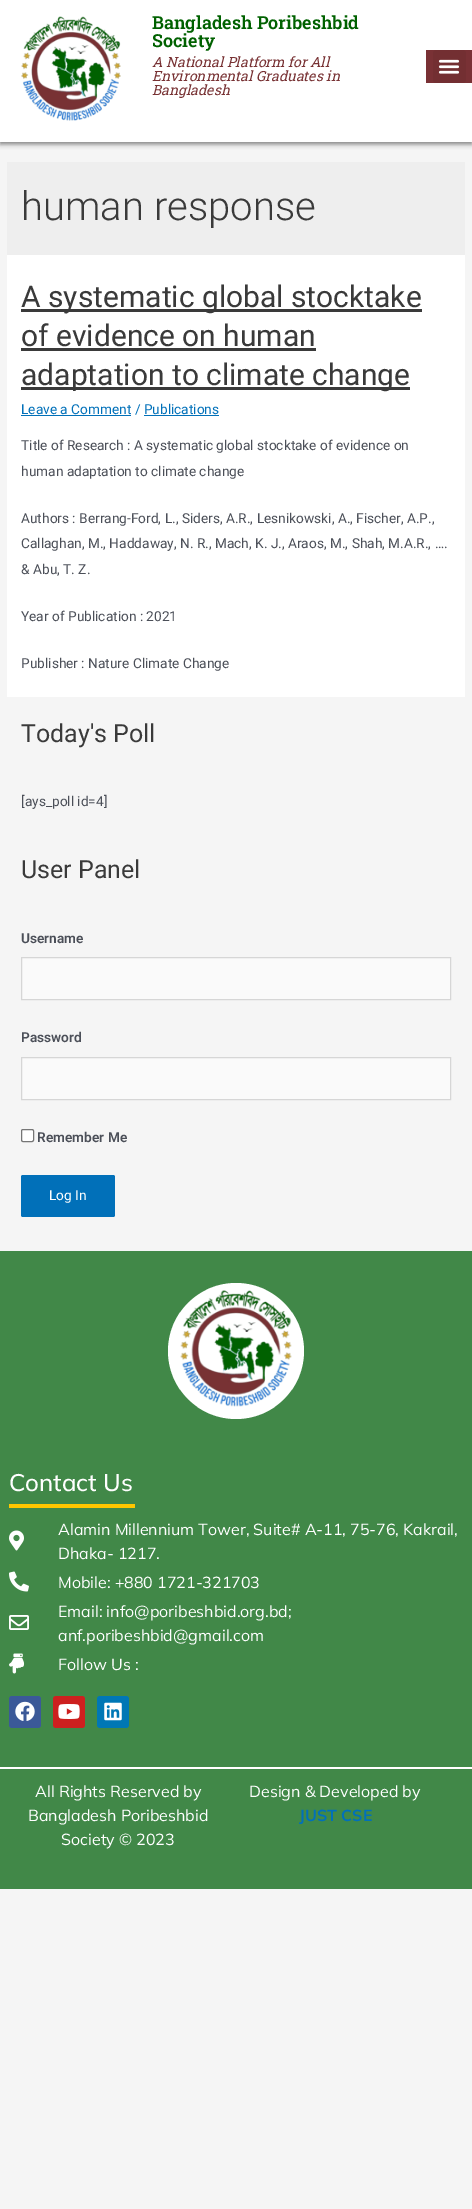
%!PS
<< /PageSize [472 2209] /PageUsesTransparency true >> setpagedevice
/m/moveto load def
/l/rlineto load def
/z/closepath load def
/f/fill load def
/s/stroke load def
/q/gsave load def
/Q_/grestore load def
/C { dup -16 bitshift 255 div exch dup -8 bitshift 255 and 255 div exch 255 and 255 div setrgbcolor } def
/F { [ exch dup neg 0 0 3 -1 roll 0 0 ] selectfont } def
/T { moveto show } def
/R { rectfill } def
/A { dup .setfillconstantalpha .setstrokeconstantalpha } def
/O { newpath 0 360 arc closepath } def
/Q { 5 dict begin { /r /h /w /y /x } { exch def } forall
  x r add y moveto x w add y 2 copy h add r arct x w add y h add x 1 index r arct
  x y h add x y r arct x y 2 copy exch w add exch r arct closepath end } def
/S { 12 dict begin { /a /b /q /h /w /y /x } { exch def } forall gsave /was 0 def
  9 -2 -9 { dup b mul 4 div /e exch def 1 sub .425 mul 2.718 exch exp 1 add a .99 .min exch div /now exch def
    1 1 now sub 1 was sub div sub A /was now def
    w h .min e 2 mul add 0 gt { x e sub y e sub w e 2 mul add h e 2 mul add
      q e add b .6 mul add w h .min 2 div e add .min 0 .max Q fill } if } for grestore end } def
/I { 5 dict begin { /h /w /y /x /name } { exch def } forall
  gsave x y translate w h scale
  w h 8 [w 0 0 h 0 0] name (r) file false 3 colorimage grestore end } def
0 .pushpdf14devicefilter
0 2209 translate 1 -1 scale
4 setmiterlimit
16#F5F5F5 C
0 0 472 2209 R
16#000000 C
0 2 472 142 0 2.5 .5 S
16#FFFFFF C
0 0 472 142 R
(1.rgb) 21 16 100 105 I
/RobotoSlab-SemiBold 18 F
16#006100 C
(Bangladesh Poribeshbid) 152 29 T
(Society) 152 47 T
/RobotoSlab-Italic 14 F
16#783234 C
(A National Platform for All) 152 67 T
(Environmental Graduates in) 152 81 T
(Bangladesh) 152 95 T
16#793135 C
426 50 46 33 R
16#732F32 C
433 50 33 33 3 Q f
(2.rgb) 438 59 22 15 I
16#EEEEEE C
7 162 458 93 R
/Roboto-Light 40 F
16#3A3A3A C
(human response) 21 220 T
16#FFFFFF C
7 255 458 442 R
16#3A3A3A C
21 309 401 3 R
/Roboto-Regular 30 F
(A systematic global stocktake) 21 307 T
(of evidence on human) 21 346 T
21 348 295 3 R
21 387 389 3 R
(adaptation to climate change) 21 385 T
/Roboto-Regular 13.7 F
16#0170B9 C
(Leave a Comment / Publications) 21 414 T
21 415 110 1 R
144 415 75 1 R
16#4B4F58 C
(Title of Research : A systematic global stocktake of evidence on) 21 450 T
(human adaptation to climate change) 21 476 T
(Authors : Berrang-Ford, L., Siders, A.R., Lesnikowski, A., Fischer, A.P.,) 21 523 T
(Callaghan, M., Haddaway, N. R., Mach, K. J., Araos, M., Shah, M.A.R., ….) 21 548 T
(& Abu, T. Z.) 21 574 T
(Year of Publication : 2021) 21 621 T
(Publisher : Nature Climate Change) 21 668 T
/Roboto-Regular 25 F
16#3A3A3A C
(Today's Poll) 21 742 T
/Roboto-Regular 13.7 F
16#4B4F58 C
([ays_poll id=4]) 21 806 T
/Roboto-Regular 25 F
16#3A3A3A C
(User Panel) 21 878 T
/Roboto-SemiBold 13.7 F
16#4B4F58 C
(Username) 21 943 T
16#FAFAFA C
21.5 957.5 m 429 0 l 0 42 l -429 0 l z q f Q_
16#D6D6D6 C
s
16#4B4F58 C
(Password) 21 1042 T
16#FAFAFA C
21.5 1057.5 m 429 0 l 0 42 l -429 0 l z q f Q_
16#D6D6D6 C
s
16#FFFFFF C
21.5 1129.5 12 12 1.5 Q q f Q_
16#767676 C
s
16#4B4F58 C
(Remember Me) 37 1142 T
16#0170B9 C
21 1175 94 42 2 Q f
/Roboto-Regular 13.7 F
16#FFFFFF C
(Log In) 49 1200 T
16#418848 C
0 1251 472 516 R
16#FFFFFF C
236 1351 68 O f
(3.rgb) 180 1290 112 117 I
/Mulish-Medium 24 F
(Contact Us) 9 1491 T
16#FFC700 C
9 1504 126 4 R
(4.rgb) 9 1530 15 21 I
/Mulish-Regular 16 F
16#FFFFFF C
(Alamin Millennium Tower, Suite# A-11, 75-76, Kakrail,) 58 1535 T
(Dhaka- 1217.) 58 1559 T
(5.rgb) 9 1571 20 21 I
(Mobile: +880 1721-321703) 58 1588 T
(6.rgb) 9 1615 20 15 I
(Email: info@poribeshbid.org.bd;) 58 1617 T
(anf.poribeshbid@gmail.com) 58 1641 T
(7.rgb) 9 1653 16 21 I
(Follow Us :) 58 1670 T
16#3B5998 C
9 1696 32 32 3 Q f
(8.rgb) 15 1701 20 20 I
16#CD201F C
53 1696 32 32 3 Q f
(9.rgb) 58 1704 22 15 I
16#0077B5 C
97 1696 32 32 3 Q f
(10.rgb) 104 1702 18 19 I
16#418848 C
0 1769 472 120 R
16#FFFFFF C
0 1767 472 2 R
(All Rights Reserved by) 35 1797 T
(Bangladesh Poribeshbid) 28 1821 T
(Society © 2023) 61 1845 T
(Design & Developed by) 249 1797 T
/Mulish-Bold 16 F
16#0170B9 C
(JUST CSE) 299 1821 T
.poppdf14devicefilter showpage
